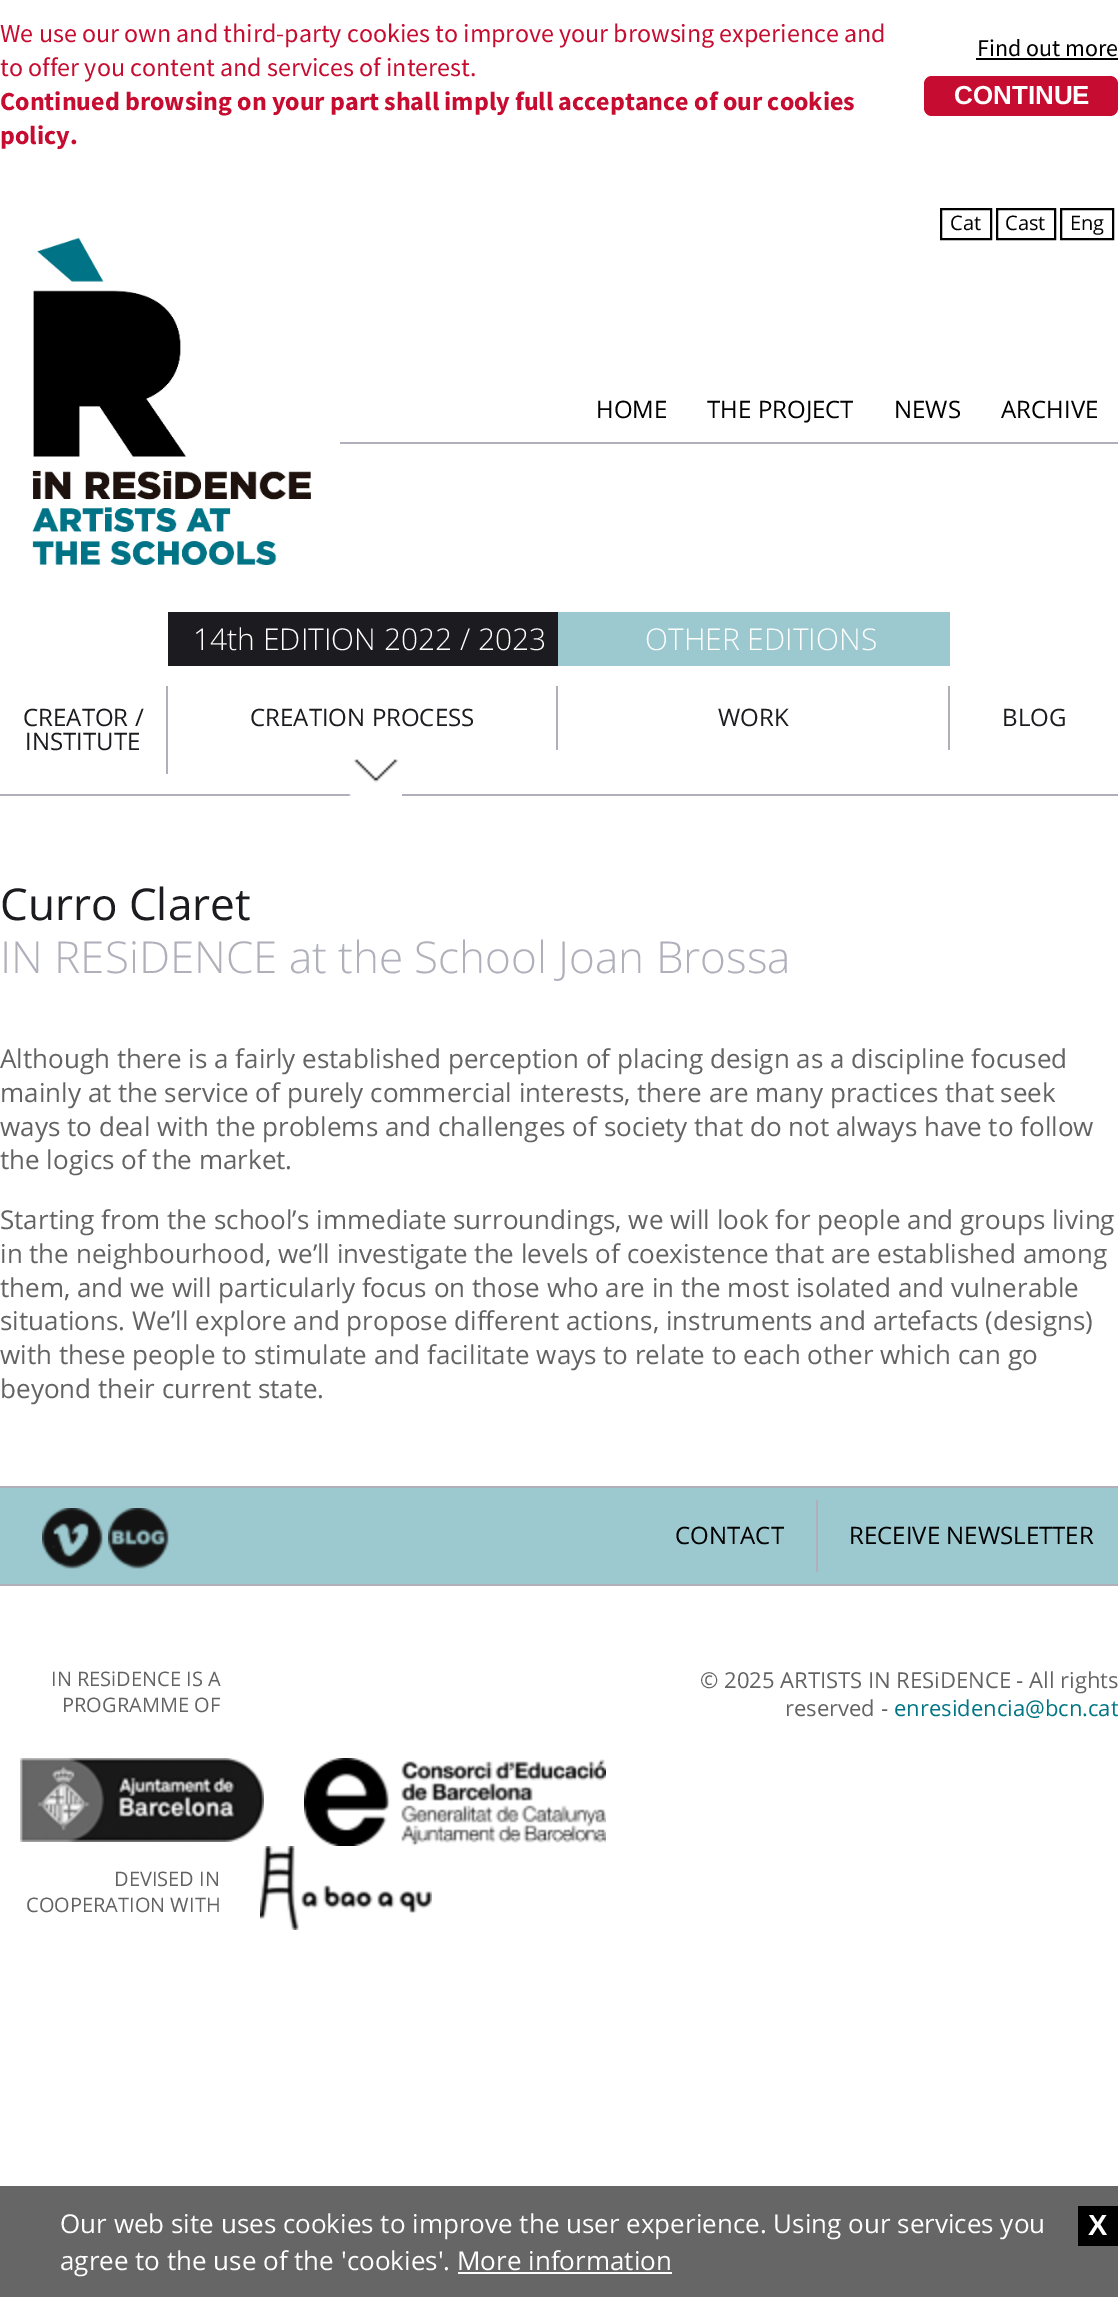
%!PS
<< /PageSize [1118 2297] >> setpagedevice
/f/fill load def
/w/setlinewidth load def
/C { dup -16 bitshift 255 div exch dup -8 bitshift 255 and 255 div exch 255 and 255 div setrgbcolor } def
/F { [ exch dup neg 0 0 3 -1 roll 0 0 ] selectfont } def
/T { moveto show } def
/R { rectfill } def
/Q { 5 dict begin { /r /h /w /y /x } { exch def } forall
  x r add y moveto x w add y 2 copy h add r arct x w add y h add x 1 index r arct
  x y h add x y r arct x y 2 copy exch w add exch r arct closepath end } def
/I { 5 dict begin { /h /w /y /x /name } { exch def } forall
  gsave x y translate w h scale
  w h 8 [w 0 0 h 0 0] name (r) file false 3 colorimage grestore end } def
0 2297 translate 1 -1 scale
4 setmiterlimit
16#FFFFFF C
0 0 1118 2297 R
/SourceSansPro-Regular 26 F
16#C60C30 C
(We use our own and third-party cookies to improve your browsing experience and) 0 42 T
(to offer you content and services of interest.) 0 76 T
/SourceSansPro-Bold 26 F
(Continued browsing on your part shall imply full acceptance of our cookies) 0 110 T
(policy.) 0 144 T
/SourceSansPro-Regular 24 F
16#000000 C
(Find out more) 977 56 T
976 58 142 2 R
16#C60C30 C
924 76 194 40 8 Q f
/LiberationSans-Bold 26 F
16#FFFFFF C
(CONTINUE) 954 104 T
(1.rgb) 0 237 340 328 I
16#000000 C
2 w
941 209 50 30 rectstroke
/OpenSans-Regular 20 F
(Cat) 950 230 T
997 209 58 30 rectstroke
(Cast) 1005 230 T
1061 209 52 30 rectstroke
(Eng) 1070 230 T
/OpenSans-Regular 24 F
(HOME) 596 418 T
(THE PROJECT) 707 418 T
(NEWS) 894 418 T
(ARCHIVE) 1001 418 T
16#AFB0BA C
340 442 778 2 R
0 794 1118 2 R
16#1C1C20 C
168 612 390 54 R
/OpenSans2-Light 30 F
16#FFFFFF C
(14th EDITION 2022 / 2023) 193 650 T
16#9CC9CF C
558 612 392 54 R
16#FFFFFF C
(OTHER EDITIONS) 645 650 T
16#AFB0BA C
166 686 2 88 R
/OpenSans-Regular 24 F
16#1C1C20 C
(CREATOR /) 23 726 T
(INSTITUTE) 25 750 T
16#AFB0BA C
556 686 2 64 R
16#1C1C20 C
(CREATION PROCESS) 250 726 T
(2.rgb) 349 759 53 37 I
16#AFB0BA C
948 686 2 64 R
16#1C1C20 C
(WORK) 718 726 T
(BLOG) 1002 726 T
/OpenSans-Regular 44 F
(Curro Claret) 0 920 T
/OpenSans-Light 44 F
16#AFB0BA C
(IN RESiDENCE at the School Joan Brossa) 0 973 T
/OpenSans-Regular 26 F
16#636363 C
(Although there is a fairly established perception of placing design as a discipline focused) 0 1068 T
(mainly at the service of purely commercial interests, there are many practices that seek) 0 1102 T
(ways to deal with the problems and challenges of society that do not always have to follow) 0 1136 T
(the logics of the market.) 0 1169 T
(Starting from the school’s immediate surroundings, we will look for people and groups living) 0 1229 T
(in the neighbourhood, we’ll investigate the levels of coexistence that are established among) 0 1263 T
(them, and we will particularly focus on those who are in the most isolated and vulnerable) 0 1297 T
(situations. We’ll explore and propose different actions, instruments and artefacts \(designs\)) 0 1330 T
(with these people to stimulate and facilitate ways to relate to each other which can go) 0 1364 T
(beyond their current state.) 0 1398 T
16#9CC9CF C
0 1488 1118 96 R
16#AFB0BA C
0 1486 1118 2 R
0 1584 1118 2 R
(3.rgb) 42 1508 61 61 I
(4.rgb) 108 1508 61 61 I
816 1500 2 72 R
/OpenSans-Regular 24 F
16#000000 C
(CONTACT) 675 1544 T
(RECEIVE NEWSLETTER) 849 1544 T
/OpenSans-Regular 20 F
16#636363 C
(IN RESiDENCE IS A) 51 1686 T
(PROGRAMME OF) 62 1712 T
(5.rgb) 20 1758 244 84 I
(6.rgb) 304 1758 302 88 I
(DEVISED IN) 114 1886 T
(COOPERATION WITH) 26 1912 T
(7.rgb) 260 1846 172 84 I
/OpenSans-Regular 22 F
(© 2025 ARTISTS IN RESiDENCE - All rights) 700 1688 T
(reserved -) 785 1716 T
16#007583 C
(enresidencia@bcn.cat) 894 1716 T
16#666666 C
0 2186 1118 111 R
/OpenSans-Regular 26 F
16#FFFFFF C
(Our web site uses cookies to improve the user experience. Using our services you) 60 2233 T
16#000000 C
1078 2206 40 40 R
/LiberationSans-Bold 29 F
16#FFFFFF C
(X) 1088 2235 T
/OpenSans-Regular 26 F
(agree to the use of the 'cookies'. More information) 60 2270 T
458 2272 214 2 R
showpage
